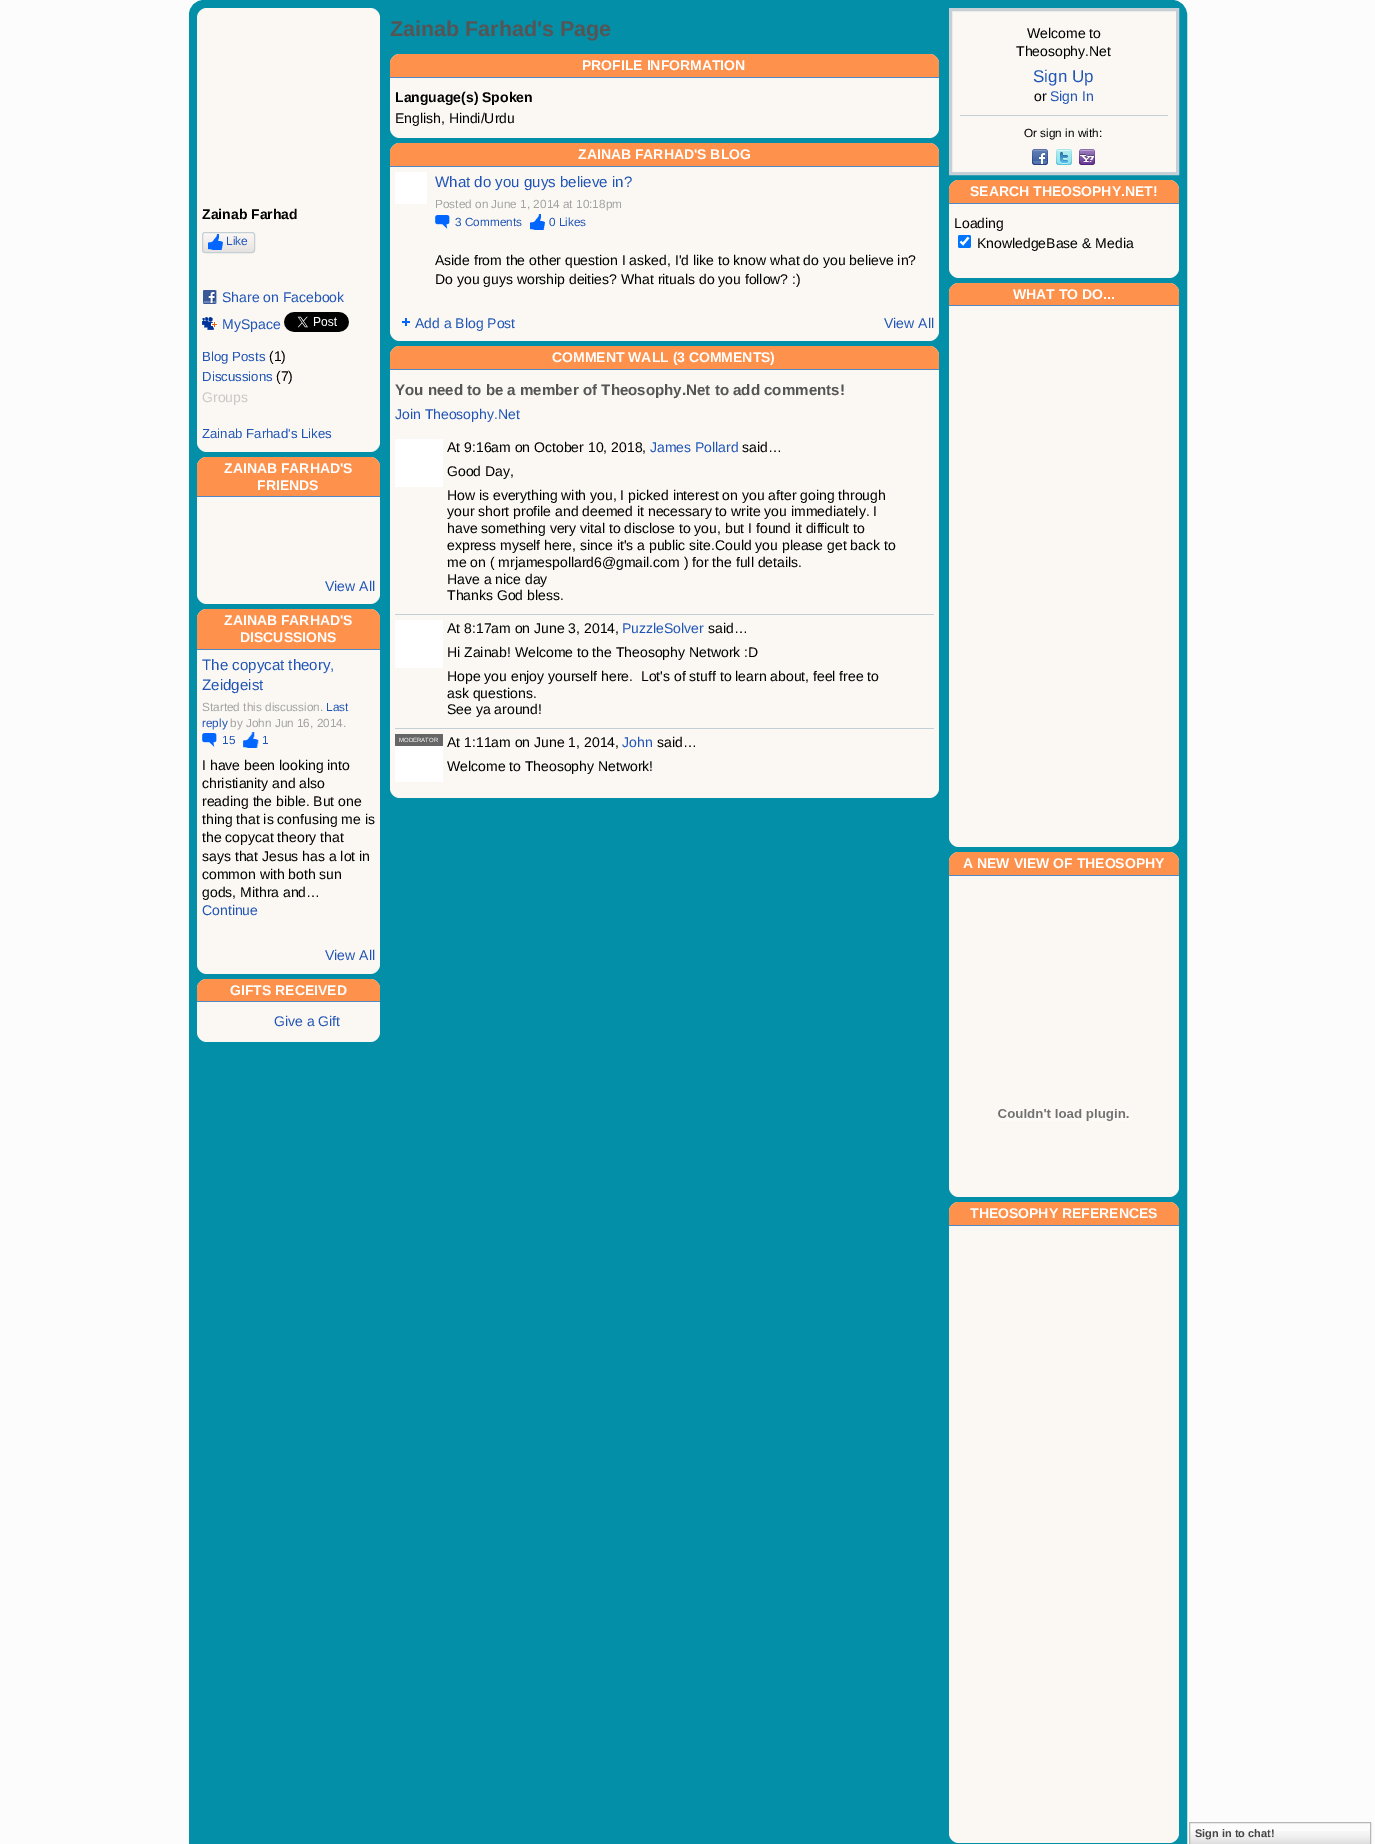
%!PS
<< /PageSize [1375 1844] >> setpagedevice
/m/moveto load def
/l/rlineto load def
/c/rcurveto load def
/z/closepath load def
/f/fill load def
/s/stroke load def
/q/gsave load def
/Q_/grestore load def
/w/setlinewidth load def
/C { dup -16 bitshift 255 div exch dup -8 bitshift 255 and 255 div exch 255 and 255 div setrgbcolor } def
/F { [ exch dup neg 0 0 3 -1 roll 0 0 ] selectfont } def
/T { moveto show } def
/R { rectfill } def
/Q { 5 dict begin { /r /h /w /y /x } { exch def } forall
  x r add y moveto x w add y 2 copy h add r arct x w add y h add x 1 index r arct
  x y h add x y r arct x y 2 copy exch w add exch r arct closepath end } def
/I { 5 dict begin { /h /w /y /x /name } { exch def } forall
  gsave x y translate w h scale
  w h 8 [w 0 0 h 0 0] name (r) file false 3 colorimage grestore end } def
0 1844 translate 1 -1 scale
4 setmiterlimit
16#FCFCFC C
0 0 1375 1844 R
16#048FA9 C
193 4 990 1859 11 Q q f Q_
8 w
s
16#FBF8F4 C
197 8 183 444 10 Q f
/LiberationSans-Bold 14 F
16#000000 C
(Zainab Farhad) 202 219 T
(1.rgb) 202 235 53 18 I
16#C4D0D5 C
1 w
202.5 232.5 52 20 2.5 Q s
(2.rgb) 208 234 15 16 I
/LiberationSans-Regular 12 F
16#2055B5 C
(Like) 226 245 T
(3.rgb) 203 290 14 14 I
/LiberationSans-Regular 14 F
(Share on Facebook) 222 302 T
(4.rgb) 202 317 16 13 I
(MySpace) 222 329 T
(5.rgb) 284 312 65 20 I
/LiberationSans-Regular 13.25 F
(Blog Posts) 202 361 T
/LiberationSans-Regular 14 F
16#000000 C
(\(1\)) 269 361 T
/LiberationSans-Regular 13.25 F
16#2055B5 C
(Discussions) 202 381 T
/LiberationSans-Regular 14 F
16#000000 C
(\(7\)) 276 381 T
16#C9C8C5 C
(Groups) 202 402 T
/LiberationSans-Regular 13.25 F
16#2055B5 C
(Zainab Farhad's Likes) 202 438 T
16#FBF8F4 C
197 457 183 147 10 Q f
16#FE914C C
207 457 m 163 0 l 5.5 0 10 4.5 10 10 c 0 29 l -183 0 l 0 -29 l 0 -5.5 4.5 -10 10 -10 c z f
16#5289C4 C
197 496 183 1 R
/LiberationSans-Bold 14 F
16#FFFFFF C
(ZAINAB FARHAD'S) 224 473 T
(FRIENDS) 257 490 T
/LiberationSans-Regular 14 F
16#2055B5 C
(View All) 325 591 T
16#FBF8F4 C
197 609 183 365 10 Q f
16#FE914C C
207 609 m 163 0 l 5.5 0 10 4.5 10 10 c 0 30 l -183 0 l 0 -30 l 0 -5.5 4.5 -10 10 -10 c z f
16#5289C4 C
197 649 183 1 R
/LiberationSans-Bold 14 F
16#FFFFFF C
(ZAINAB FARHAD'S) 224 625 T
(DISCUSSIONS) 240 642 T
/LiberationSans-Regular 15.1 F
16#2055B5 C
(The copycat theory,) 202 670 T
(Zeidgeist) 202 690 T
/LiberationSans-Regular 11.8 F
16#A3A3A3 C
(Started this discussion.) 202 711 T
16#2055B5 C
(Last) 326 711 T
(reply) 202 727 T
16#A3A3A3 C
(by John Jun 16, 2014.) 230 727 T
(6.rgb) 202 733 15 14 I
16#2055B5 C
(15) 222 744 T
(7.rgb) 243 732 16 16 I
(1) 262 744 T
/LiberationSans-Regular 14 F
16#000000 C
(I have been looking into) 202 770 T
(christianity and also) 202 788 T
(reading the bible. But one) 202 806 T
(thing that is confusing me is) 202 824 T
(the copycat theory that) 202 842 T
(says that Jesus has a lot in) 202 861 T
(common with both sun) 202 879 T
(gods, Mithra and…) 202 897 T
16#2055B5 C
(Continue) 202 915 T
(View All) 325 960 T
16#FBF8F4 C
197 979 183 63 10 Q f
16#FE914C C
207 979 m 163 0 l 5.5 0 10 4.5 10 10 c 0 12 l -183 0 l 0 -12 l 0 -5.5 4.5 -10 10 -10 c z f
16#5289C4 C
197 1001 183 1 R
/LiberationSans-Bold 14 F
16#FFFFFF C
(GIFTS RECEIVED) 230 995 T
/LiberationSans-Regular 14 F
16#2055B5 C
(Give a Gift) 274 1026 T
/LiberationSans-Bold 21.5 F
16#555555 C
(Zainab Farhad's Page) 390 36 T
16#FBF8F4 C
390 54 549 84 10 Q f
16#FE914C C
400 54 m 529 0 l 5.5 0 10 4.5 10 10 c 0 13 l -549 0 l 0 -13 l 0 -5.5 4.5 -10 10 -10 c z f
16#5289C4 C
390 77 549 1 R
/LiberationSans-Bold 14 F
16#FFFFFF C
(PROFILE INFORMATION) 582 70 T
16#000000 C
(Language\(s\) Spoken) 395 102 T
/LiberationSans-Regular 14 F
(English, Hindi/Urdu) 395 123 T
16#FBF8F4 C
390 143 549 198 10 Q f
16#FE914C C
400 143 m 529 0 l 5.5 0 10 4.5 10 10 c 0 13 l -549 0 l 0 -13 l 0 -5.5 4.5 -10 10 -10 c z f
16#5289C4 C
390 166 549 1 R
/LiberationSans-Bold 14 F
16#FFFFFF C
(ZAINAB FARHAD'S BLOG) 578 159 T
395 172 32 32 R
/LiberationSans-Regular 15.1 F
16#2055B5 C
(What do you guys believe in?) 435 187 T
/LiberationSans-Regular 11.8 F
16#A3A3A3 C
(Posted on June 1, 2014 at 10:18pm) 435 208 T
(6.rgb) 435 215 15 14 I
16#2055B5 C
(3 Comments) 455 226 T
(8.rgb) 530 214 15 16 I
(0 Likes) 549 226 T
/LiberationSans-Regular 14 F
16#000000 C
(Aside from the other question I asked, I'd like to know what do you believe in?) 435 265 T
(Do you guys worship deities? What rituals do you follow? :\)) 435 284 T
(9.rgb) 402 318 8 8 I
16#2055B5 C
(Add a Blog Post) 415 328 T
(View All) 884 328 T
16#FBF8F4 C
390 346 549 452 10 Q f
16#FE914C C
400 346 m 529 0 l 5.5 0 10 4.5 10 10 c 0 13 l -549 0 l 0 -13 l 0 -5.5 4.5 -10 10 -10 c z f
16#5289C4 C
390 369 549 1 R
/LiberationSans-Bold 14 F
16#FFFFFF C
(COMMENT WALL \(3 COMMENTS\)) 552 362 T
/LiberationSans-Bold 15.1 F
16#555555 C
(You need to be a member of Theosophy.Net to add comments!) 395 395 T
/LiberationSans-Regular 14 F
16#2055B5 C
(Join Theosophy.Net) 395 419 T
16#C4D0D5 C
395 614 539 1 R
16#000000 C
(At 9:16am on October 10, 2018,) 447 452 T
16#FFFFFF C
395 439 48 48 R
16#2055B5 C
(James Pollard) 650 452 T
16#000000 C
(said…) 742 452 T
(Good Day,) 447 476 T
(How is everything with you, I picked interest on you after going through) 447 500 T
(your short profile and deemed it necessary to write you immediately. I) 447 516 T
(have something very vital to disclose to you, but I found it difficult to) 447 533 T
(express myself here, since it's a public site.Could you please get back to) 447 550 T
(me on \( mrjamespollard6@gmail.com \) for the full details.) 447 567 T
(Have a nice day) 447 584 T
(Thanks God bless.) 447 600 T
16#C4D0D5 C
395 728 539 1 R
16#000000 C
(At 8:17am on June 3, 2014,) 447 633 T
16#FFFFFF C
395 620 48 48 R
16#2055B5 C
(PuzzleSolver) 622 633 T
16#000000 C
(said…) 708 633 T
(Hi Zainab! Welcome to the Theosophy Network :D) 447 657 T
(Hope you enjoy yourself here.  Lot's of stuff to learn about, feel free to) 447 681 T
(ask questions.) 447 698 T
(See ya around!) 447 714 T
16#FFFFFF C
395 746 48 36 R
16#666666 C
395 734 48 12 R
/LiberationSans-Regular 6 F
16#FFFFFF C
(MODERATOR) 399 742 T
/LiberationSans-Regular 14 F
16#2055B5 C
(John) 622 747 T
16#000000 C
(said…) 657 747 T
(At 1:11am on June 1, 2014,) 447 747 T
(Welcome to Theosophy Network!) 447 771 T
16#FBF8F4 C
950.5 9.5 m 227 0 l 0 164 l -227 0 l z q f Q_
16#C4D0D5 C
3 w
s
16#000000 C
(Welcome to) 1027 38 T
(Theosophy.Net) 1016 56 T
/LiberationSans-Regular 17 F
16#2055B5 C
(Sign Up) 1033 82 T
/LiberationSans-Regular 14 F
16#000000 C
(or) 1034 101 T
16#2055B5 C
(Sign In) 1050 101 T
16#C4D0D5 C
960 115 208 1 R
/LiberationSans-Regular 11.8 F
16#000000 C
(Or sign in with:) 1024 137 T
(10.rgb) 1032 149 16 16 I
(11.rgb) 1056 149 16 16 I
(12.rgb) 1079 149 16 16 I
16#FBF8F4 C
949 180 230 98 10 Q f
16#FE914C C
959 180 m 210 0 l 5.5 0 10 4.5 10 10 c 0 13 l -230 0 l 0 -13 l 0 -5.5 4.5 -10 10 -10 c z f
16#5289C4 C
949 203 230 1 R
/LiberationSans-Bold 14 F
16#FFFFFF C
(SEARCH THEOSOPHY.NET!) 970 196 T
/LiberationSans-Regular 14 F
16#000000 C
(Loading) 954 228 T
16#0075FF C
958 235 13 13 2 Q f
16#FFFFFF C
2.1 w
960.5 241.5 m 2.5 2.5 l 5.5 -6.5 l s
16#000000 C
(KnowledgeBase & Media) 977 248 T
16#FBF8F4 C
949 283 230 564 10 Q f
16#FE914C C
959 283 m 210 0 l 5.5 0 10 4.5 10 10 c 0 12 l -230 0 l 0 -12 l 0 -5.5 4.5 -10 10 -10 c z f
16#5289C4 C
949 305 230 1 R
/LiberationSans-Bold 14 F
16#FFFFFF C
(WHAT TO DO...) 1013 299 T
16#FBF8F4 C
949 852 230 345 10 Q f
16#FE914C C
959 852 m 210 0 l 5.5 0 10 4.5 10 10 c 0 13 l -230 0 l 0 -13 l 0 -5.5 4.5 -10 10 -10 c z f
16#5289C4 C
949 875 230 1 R
16#FFFFFF C
(A NEW VIEW OF THEOSOPHY) 963 868 T
(13.rgb) 998 1109 131 12 I
16#FBF8F4 C
949 1202 230 641 10 Q f
16#FE914C C
959 1202 m 210 0 l 5.5 0 10 4.5 10 10 c 0 13 l -230 0 l 0 -13 l 0 -5.5 4.5 -10 10 -10 c z f
16#5289C4 C
949 1225 230 1 R
16#FFFFFF C
(THEOSOPHY REFERENCES) 970 1218 T
(14.rgb) 1190 1831 180 13 I
16#B7B7B7 C
1 w
1189.5 1822.5 181 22 rectstroke
/LiberationSans-Bold 11 F
16#454545 C
(Sign in to chat!) 1195 1837 T
showpage
